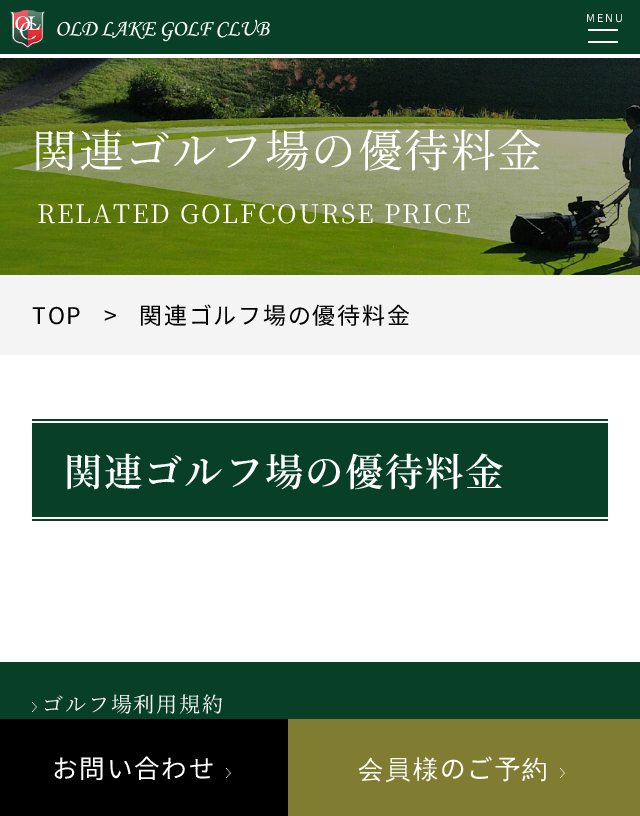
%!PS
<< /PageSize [640 816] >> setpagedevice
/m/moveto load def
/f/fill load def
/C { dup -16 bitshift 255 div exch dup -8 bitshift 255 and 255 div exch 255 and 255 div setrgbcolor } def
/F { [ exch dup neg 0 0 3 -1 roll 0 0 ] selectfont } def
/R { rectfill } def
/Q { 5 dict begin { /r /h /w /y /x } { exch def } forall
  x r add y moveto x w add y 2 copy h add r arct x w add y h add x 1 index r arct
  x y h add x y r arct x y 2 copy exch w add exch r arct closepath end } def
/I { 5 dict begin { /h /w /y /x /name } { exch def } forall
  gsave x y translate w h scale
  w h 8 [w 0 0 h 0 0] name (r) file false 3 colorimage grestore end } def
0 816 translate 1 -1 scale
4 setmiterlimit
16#FFFFFF C
0 0 640 816 R
16#083F27 C
0 0 640 54 R
(1.rgb) 10 10 260 39 I
/NotoSansJP-Regular 11 F
16#FFFFFF C
586 22 m 1.75 0 (MENU) ashow
588 29 30 2 1 Q f
588 41 30 2 1 Q f
(2.rgb) 0 58 640 217 I
/NotoSerifJP-Regular 44.75 F
32 167 m 1.75 0 (関連ゴルフ場の優待料金) ashow
/NotoSerifJP-Regular 25.6 F
37 223 m 1.75 0 (RELATED GOLFCOURSE PRICE) ashow
16#F4F4F4 C
0 275 640 80 R
/NotoSansJP-Regular 23 F
16#000000 C
32 324 m 1.75 0 (TOP) ashow
104 324 m 1.75 0 (>   関連ゴルフ場の優待料金) ashow
16#083F27 C
32 419 576 102 R
16#FFFFFF C
32 421 576 2 R
/NotoSerifJP-SemiBold 38.4 F
64 486 m 1.75 0 (関連ゴルフ場の優待料金) ashow
32 517 576 2 R
16#083F27 C
0 662 640 57 R
(3.rgb) 32 702 5 10 I
/NotoSerifJP-Regular 21.1 F
16#FFFFFF C
42 712 m 1.75 0 (ゴルフ場利用規約) ashow
16#000000 C
0 719 288 97 R
/NotoSansJP-Regular 25.6 F
16#FFFFFF C
52 778 m 1.75 0 (お問い合わせ) ashow
(4.rgb) 226 768 5 10 I
16#807C31 C
288 719 352 97 R
/WenQuanYiZenHei-Medium 25.6 F
16#FFFFFF C
358 778 m 1.75 0 (会員様) ashow
/NotoSansJP-Regular 25.6 F
440 778 m 1.75 0 (のご) ashow
/WenQuanYiZenHei-Medium 25.6 F
495 778 m 1.75 0 (予約) ashow
(5.rgb) 560 768 5 10 I
showpage
